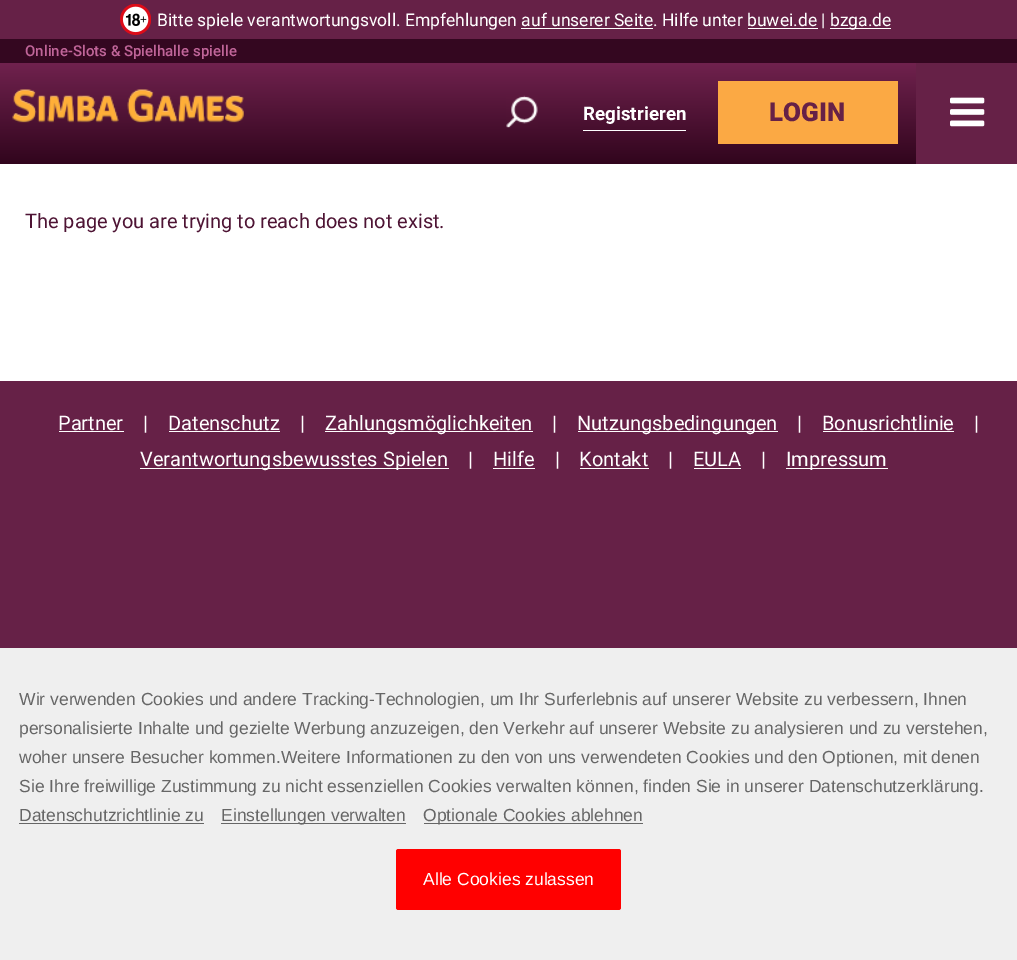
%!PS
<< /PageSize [1017 960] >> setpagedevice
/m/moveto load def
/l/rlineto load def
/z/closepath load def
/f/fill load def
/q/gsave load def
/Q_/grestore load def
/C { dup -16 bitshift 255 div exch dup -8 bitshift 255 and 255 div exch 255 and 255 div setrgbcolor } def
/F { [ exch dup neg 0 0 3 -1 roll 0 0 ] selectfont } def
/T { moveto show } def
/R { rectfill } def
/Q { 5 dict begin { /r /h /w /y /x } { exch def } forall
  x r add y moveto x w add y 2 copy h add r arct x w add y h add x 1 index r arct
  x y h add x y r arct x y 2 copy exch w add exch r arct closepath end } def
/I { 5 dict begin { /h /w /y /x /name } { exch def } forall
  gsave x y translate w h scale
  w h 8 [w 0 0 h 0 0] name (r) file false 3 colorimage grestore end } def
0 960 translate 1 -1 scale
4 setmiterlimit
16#FFFFFF C
0 0 1017 960 R
16#662147 C
0 0 1017 39 R
(1.rgb) 120 4 31 31 I
/Roboto-Regular 17.5 F
16#FFFFFF C
(Bitte spiele verantwortungsvoll. Empfehlungen auf unserer Seite. Hilfe unter buwei.de |) 157 26 T
830 28 61 1 R
(bzga.de) 830 26 T
521 28 132 1 R
748 28 70 1 R
16#340720 C
0 39 1017 24 R
/Roboto-Medium 15 F
16#C06599 C
(Online-Slots & Spielhalle spielle) 25 56 T
q 0 63 m 916 0 l 0 101 l -916 0 l z clip newpath
<< /ShadingType 2 /ColorSpace /DeviceRGB /Coords [509 62 509 164] /Extend [true true] /Function << /FunctionType 2 /Domain [0 1] /C0 [.443 .133 .306] /C1 [.192 .02 .114] /N 1 >> >> shfill Q_
(2.rgb) 12 89 232 34 I
(3.rgb) 506 95 32 33 I
16#FFFFFF C
583 130 103 1 R
/Roboto-Bold 18.75 F
(Registrieren) 583 120 T
16#FBA944 C
718 81 180 63 R
/Roboto-Black 26 F
16#662147 C
(LOGIN) 769 121 T
916 63 101 101 R
(4.rgb) 950 97 35 30 I
/Roboto-Regular 20 F
16#4E1434 C
(The page you are trying to reach does not exist.) 25 228 T
16#662147 C
0 381 1017 267 R
16#FFFFFF C
(Partner) 58 430 T
59 431 65 1 R
(|) 143 430 T
(Datenschutz) 168 430 T
169 431 111 1 R
(|) 300 430 T
325 431 208 1 R
(Zahlungsmöglichkeiten) 325 430 T
(|) 552 430 T
578 431 200 1 R
(Nutzungsbedingungen) 577 430 T
(|) 797 430 T
(Bonusrichtlinie) 822 430 T
823 431 131 1 R
(|) 974 430 T
140 468 309 1 R
(Verantwortungsbewusstes Spielen) 140 466 T
(|) 468 466 T
(Hilfe) 493 466 T
493 468 42 1 R
(|) 555 466 T
(Kontakt) 579 466 T
580 468 69 1 R
(|) 668 466 T
(EULA) 693 466 T
694 468 47 1 R
(|) 761 466 T
786 468 102 1 R
(Impressum) 786 466 T
16#EFEFEF C
0 648 1017 312 R
/LiberationSans-Regular 17.5 F
16#666666 C
(Wir verwenden Cookies und andere Tracking-Technologien, um Ihr Surferlebnis auf unserer Website zu verbessern, Ihnen) 19 705 T
(personalisierte Inhalte und gezielte Werbung anzuzeigen, den Verkehr auf unserer Website zu analysieren und zu verstehen,) 19 734 T
(woher unsere Besucher kommen.Weitere Informationen zu den von uns verwendeten Cookies und den Optionen, mit denen) 19 763 T
(Sie Ihre freiwillige Zustimmung zu nicht essenziellen Cookies verwalten können, finden Sie in unserer Datenschutzerklärung.) 19 792 T
(Datenschutzrichtlinie zu) 19 821 T
19 823 185 1 R
221 823 185 1 R
(Einstellungen verwalten) 221 821 T
424 823 219 1 R
(Optionale Cookies ablehnen) 423 821 T
16#FF0000 C
396 849 225 61 2.5 Q f
16#FFFFFF C
(Alle Cookies zulassen) 423 885 T
showpage
